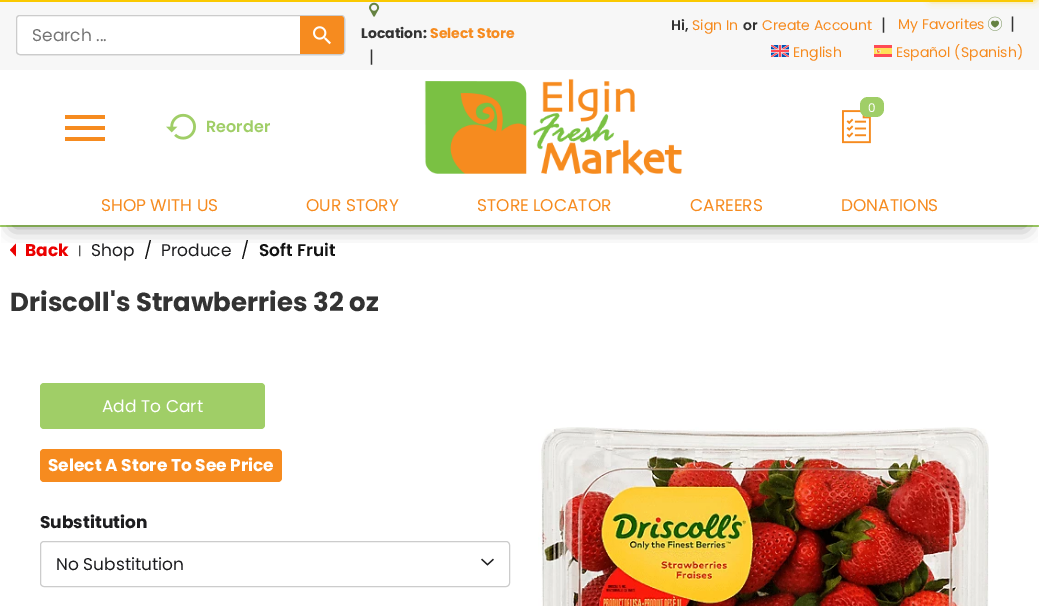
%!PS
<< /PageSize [1039 606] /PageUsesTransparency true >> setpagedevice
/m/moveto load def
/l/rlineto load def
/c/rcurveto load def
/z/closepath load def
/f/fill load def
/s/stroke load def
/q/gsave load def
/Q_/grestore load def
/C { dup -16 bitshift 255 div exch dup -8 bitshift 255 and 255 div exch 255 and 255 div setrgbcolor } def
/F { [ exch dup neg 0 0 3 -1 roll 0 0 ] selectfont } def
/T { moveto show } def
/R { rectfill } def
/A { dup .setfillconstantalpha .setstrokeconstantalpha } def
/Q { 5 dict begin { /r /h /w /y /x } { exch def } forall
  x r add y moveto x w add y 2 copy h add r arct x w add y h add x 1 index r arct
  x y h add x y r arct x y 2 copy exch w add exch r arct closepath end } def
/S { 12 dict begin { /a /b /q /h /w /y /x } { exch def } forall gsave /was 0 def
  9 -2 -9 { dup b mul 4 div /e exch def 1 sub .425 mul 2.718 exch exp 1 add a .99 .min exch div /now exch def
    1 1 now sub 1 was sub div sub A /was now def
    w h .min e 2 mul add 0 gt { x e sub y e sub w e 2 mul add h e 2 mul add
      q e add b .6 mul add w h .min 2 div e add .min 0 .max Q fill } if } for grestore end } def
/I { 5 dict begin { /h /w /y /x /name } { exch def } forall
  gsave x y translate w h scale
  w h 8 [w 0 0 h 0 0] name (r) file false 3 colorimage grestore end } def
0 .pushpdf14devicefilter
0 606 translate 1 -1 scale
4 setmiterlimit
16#FFFFFF C
0 0 1039 606 R
16#F7F7F7 C
0 0 1039 70 R
16#FAC901 C
0 0 1033 2 R
933 -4 100 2 0 2.5 1 S
933 -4 100 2 0 5 1 S
16#CCCCCC C
16.5 15.5 328 39 3.5 Q s
16#FFFFFF C
16.5 15.5 328 39 3.5 Q q f Q_
16#CCCCCC C
s
/Poppins-Regular 17 F
16#757575 C
(Search ...) 32 41 T
16#F68B1F C
300 16 m 41 0 l 1.5 0 3 1.5 3 3 c 0 32 l 0 1.5 -1.5 3 -3 3 c -41 0 l z f
(1.rgb) 313 26 18 19 I
(2.rgb) 369 2 11 15 I
/Poppins-Bold 14 F
16#333333 C
(Location:) 361 38 T
16#F68B1F C
(Select Store) 430 38 T
/Poppins-Regular 17 F
16#333333 C
(|) 369 63 T
/Poppins-SemiBold 14 F
(Hi,) 671 30 T
/Poppins-Regular 14 F
16#F68B1F C
(Sign In) 692 30 T
/Poppins-SemiBold 14 F
16#333333 C
(or) 743 30 T
/Poppins-Regular 14 F
16#F68B1F C
(Create Account) 762 30 T
/Poppins-Regular 17 F
16#333333 C
(|) 881 31 T
/Poppins-Regular 14 F
16#F68B1F C
(My Favorites) 898 29 T
(3.rgb) 988 16 14 15 I
/Poppins-Regular 17 F
16#333333 C
(|) 1010 30 T
(4.rgb) 771 45 18 12 I
/Poppins-Regular 14 F
16#F68B1F C
(English) 793 57 T
(5.rgb) 874 45 18 12 I
(Español \(Spanish\)) 896 57 T
(6.rgb) 424 78 259 98 I
(7.rgb) 842 110 29 34 I
16#A0CE67 C
860 97 24 20 8 Q f
/Poppins-Regular 12 F
16#FFFFFF C
(0) 868 112 T
16#F68B1F C
65 126 40 4 R
65 115 40 4 R
65 137 40 4 R
(8.rgb) 166 113 30 27 I
/Poppins-SemiBold 16 F
16#A0CE67 C
(Reorder) 206 132 T
0 225 1039 2 R
16#EB0000 C
16 243.5 m 0 13 l -6 -6.5 l z f
q
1 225 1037 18 rectclip
16#000000 C
13 213 1013 14 0 10 .4 S
Q_
/Poppins-Regular 17 F
16#F68B1F C
(SHOP WITH US) 101 211 T
(OUR STORY) 306 211 T
(STORE LOCATOR) 477 211 T
(CAREERS) 690 211 T
(DONATIONS) 841 211 T
/Poppins-Bold 17 F
16#EB0000 C
(Back) 25 256 T
/Poppins-Regular 12 F
16#121212 C
(|) 78 255 T
/Poppins-Regular 17 F
16#1D1D1F C
(Shop) 91 256 T
16#121212 C
(/) 144 256 T
16#1D1D1F C
(Produce) 161 256 T
16#121212 C
(/) 241 256 T
/Poppins-SemiBold 17 F
(Soft Fruit) 259 256 T
/Poppins-Bold 26 F
16#333333 C
(Driscoll's Strawberries 32 oz) 10 311 T
16#A0CE67 C
40 383 225 46 4 Q f
/Poppins-Regular 17 F
16#FFFFFF C
(Add To Cart) 102 412 T
16#F68B1F C
40 449 242 33 4 Q f
/Poppins-Bold 17 F
16#FFFFFF C
(Select A Store To See Price) 48 471 T
16#1D1D1F C
(Substitution) 40 528 T
16#CCCCCC C
40.5 541.5 469 45 3.5 Q s
/Poppins-Regular 17 F
16#1D1D1F C
(No Substitution) 56 570 T
(9.rgb) 481 558 13 8 I
(10.rgb) 538 427 451 179 I
.poppdf14devicefilter showpage
